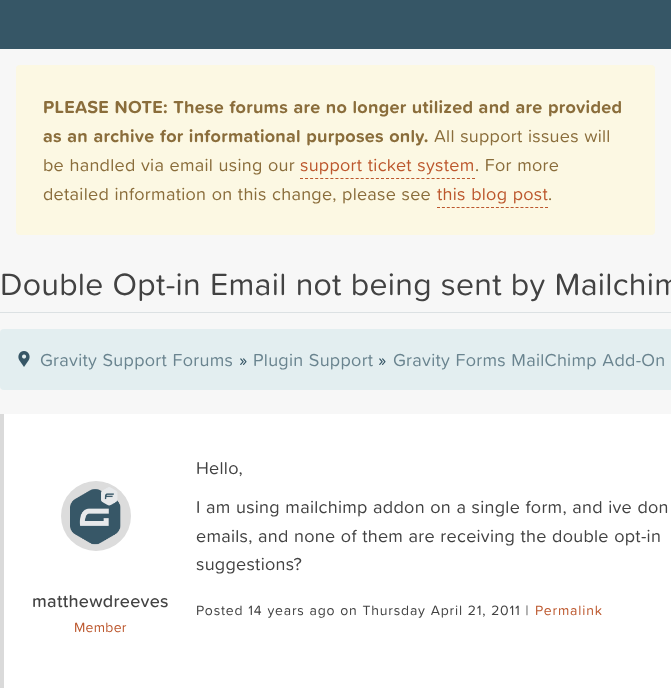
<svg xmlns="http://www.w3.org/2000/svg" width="671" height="688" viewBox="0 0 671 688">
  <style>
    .t1 { font: bold 18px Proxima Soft; letter-spacing: 0.27px; fill: #8a6d3b; }
    .t2 { font: 18px Proxima Soft; letter-spacing: 0.27px; fill: #8a6d3b; }
    .t3 { font: 18px Proxima Soft; letter-spacing: 0.27px; fill: #bc572d; }
    .t4 { font: 32px Proxima Soft; letter-spacing: 0.27px; fill: #424242; }
    .t5 { font: 18px Proxima Soft; letter-spacing: 0.27px; fill: #6a848f; }
    .t6 { font: 500 18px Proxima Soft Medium; letter-spacing: 0.27px; fill: #365666; }
    .t7 { font: 500 18px Proxima Soft Medium; letter-spacing: 0.27px; fill: #424242; }
    .t8 { font: 14px Proxima Soft; letter-spacing: 0.27px; fill: #bc572d; }
    .t9 { font: 18px Proxima Soft; letter-spacing: 0.27px; fill: #424242; }
    .t10 { font: 14px Proxima Soft; letter-spacing: 0.8px; fill: #424242; }
    .t11 { font: 14px Proxima Soft; letter-spacing: 0.8px; fill: #bc572d; }
  </style>
  <rect width="100%" height="100%" fill="#f7f7f7"/>
  <rect x="0" y="0" width="671" height="49" fill="#365666"/>
  <rect x="16" y="65" width="639" height="170" rx="4" fill="#fcf8e3"/>
  <text x="43" y="113" word-spacing="0.5" class="t1">PLEASE NOTE: These forums are no longer utilized and are provided</text>
  <text x="43" y="142" word-spacing="0.5" class="t1">as an archive for informational purposes only.</text>
  <text x="434" y="142" word-spacing="0.5" class="t2">All support issues will</text>
  <text x="43" y="171" word-spacing="0.5" class="t2">be handled via email using our</text>
  <text x="300" y="171" word-spacing="0.5" class="t3">support ticket system</text>
  <path d="M300 178.5H475" fill="none" stroke="#bc572d" stroke-dasharray="3 2.06"/>
  <text x="475" y="171" word-spacing="0.5" class="t2">. For more</text>
  <text x="43" y="200" word-spacing="0.5" class="t2">detailed information on this change, please see</text>
  <text x="437" y="200" word-spacing="0.5" class="t3">this blog post</text>
  <path d="M437 207.5H548" fill="none" stroke="#bc572d" stroke-dasharray="3 1.91"/>
  <text x="548" y="200" class="t2">.</text>
  <rect x="0" y="312" width="671" height="1" fill="#dce1e3"/>
  <text x="0" y="295" word-spacing="0.5" class="t4">Double Opt-in Email not being sent by Mailchim</text>
  <rect x="0" y="329" width="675" height="61" rx="4" fill="#e3eef0"/>
  <image x="18" y="351" width="12" height="16" href="images/1.png"/>
  <text x="40" y="366" word-spacing="0.5" class="t5">Gravity Support Forums</text>
  <text x="239" y="366" class="t6">»</text>
  <text x="253" y="366" word-spacing="0.5" class="t5">Plugin Support</text>
  <text x="378" y="366" class="t6">»</text>
  <text x="393" y="366" word-spacing="0.5" class="t5">Gravity Forms MailChimp Add-On</text>
  <rect x="4" y="414" width="667" height="274" fill="#fff"/>
  <rect x="0" y="414" width="4" height="274" fill="#dadada"/>
  <image x="61" y="481" width="70" height="70" href="images/2.png"/>
  <text x="32" y="607" class="t7">matthewdreeves</text>
  <text x="74" y="632" class="t8">Member</text>
  <text x="196" y="474" class="t9">Hello,</text>
  <text x="196" y="513" word-spacing="0.5" class="t9">I am using mailchimp addon on a single form, and ive don</text>
  <text x="196" y="542" word-spacing="0.5" class="t9">emails, and none of them are receiving the double opt-in</text>
  <text x="196" y="570" class="t9">suggestions?</text>
  <text x="196" y="615" word-spacing="0.5" class="t10">Posted 14 years ago on Thursday April 21, 2011 |</text>
  <text x="535" y="615" class="t11">Permalink</text>
</svg>
